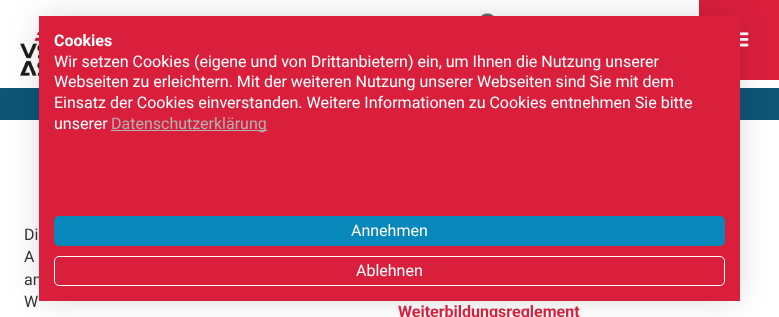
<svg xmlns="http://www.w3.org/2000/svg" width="779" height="317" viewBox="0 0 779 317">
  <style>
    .t1 { font: 16px Roboto; fill: #333; }
    .t2 { font: bold 16px Roboto; fill: #fff; }
    .t3 { font: 16px Roboto; fill: #fff; }
    .t4 { font: 16px Roboto; fill: #b1b2b3; }
    .t5 { font: bold 16px Roboto; fill: #da1f3d; }
  </style>
  <rect width="100%" height="100%" fill="#005983"/>
  <rect x="0" y="0" width="779" height="88" fill="#fff"/>
  <image x="481" y="12" width="13" height="4" href="images/1.png"/>
  <rect x="699" y="0" width="80" height="80" fill="#da1f3d"/>
  <image x="740" y="32" width="9" height="15" href="images/2.png"/>
  <image x="20" y="31" width="19" height="45" href="images/3.png"/>
  <image x="0" y="88" width="779" height="32" href="images/4.png"/>
  <rect x="0" y="120" width="779" height="197" fill="#fff"/>
  <rect x="41" y="18" width="697" height="281" fill="#00000029" filter="blur(15px)"/>
  <text x="24" y="285" class="t1">an</text>
  <rect x="39" y="16" width="701" height="285" fill="#da1f3d"/>
  <text x="54" y="46" class="t2">Cookies</text>
  <text x="54" y="67" class="t3">Wir setzen Cookies (eigene und von Drittanbietern) ein, um Ihnen die Nutzung unserer</text>
  <text x="54" y="87" class="t3">Webseiten zu erleichtern. Mit der weiteren Nutzung unserer Webseiten sind Sie mit dem</text>
  <text x="54" y="108" class="t3">Einsatz der Cookies einverstanden. Weitere Informationen zu Cookies entnehmen Sie bitte</text>
  <text x="54" y="129" class="t3">unserer</text>
  <rect x="111" y="130" width="156" height="1" fill="#b1b2b3"/>
  <text x="111" y="129" class="t4">Datenschutzerklärung</text>
  <rect x="54" y="216" width="671" height="30" rx="5" fill="#0787ba"/>
  <text x="351" y="236" class="t3">Annehmen</text>
  <rect x="54.5" y="256.5" width="670" height="29" rx="4.5" fill="none" stroke="#fff"/>
  <text x="356" y="276" class="t3">Ablehnen</text>
  <text x="24" y="240" class="t1">Di</text>
  <text x="24" y="262" class="t1">A</text>
  <text x="24" y="307" class="t1">W</text>
  <text x="398" y="317" class="t5">Weiterbildungsreglement</text>
</svg>
